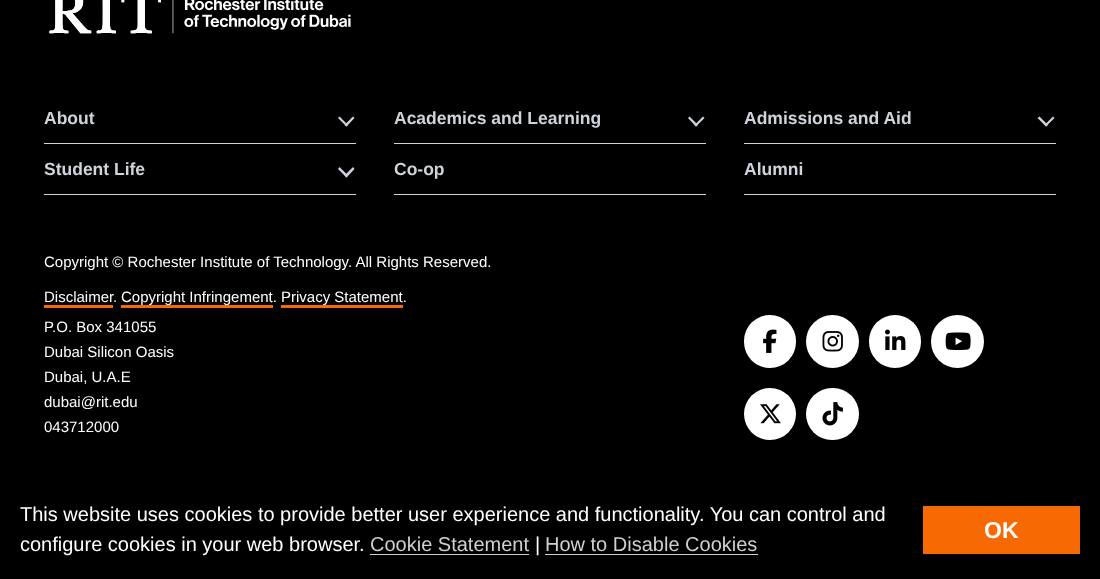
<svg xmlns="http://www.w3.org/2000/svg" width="1100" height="579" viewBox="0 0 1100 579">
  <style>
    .t1 { font: bold 17.5px Liberation Sans; fill: #ced4da; }
    .t2 { font: 15px Liberation Sans; fill: #fff; }
    .t3 { font: 20px Liberation Sans; fill: #fff; }
    .t4 { font: 20px Liberation Sans; fill: #d0d0d0; }
    .t5 { font: bold 23px Liberation Sans; fill: #fff; }
  </style>
  <rect width="100%" height="100%" fill="#000"/>
  <image x="49" y="0" width="302" height="34" href="images/1.png"/>
  <text x="44" y="124" class="t1">About</text>
  <path d="M354.5 118L346.5 126.5L344.5 125L353 116.5Z" fill="#ced4da"/>
  <path d="M348 125L346.5 126.5L338 118L339.5 116.5Z" fill="#ced4da"/>
  <rect x="44" y="143" width="312" height="1" fill="#ced4da"/>
  <text x="44" y="175" class="t1">Student Life</text>
  <path d="M354.5 169L346.5 177.5L344.5 175.5L353 167Z" fill="#ced4da"/>
  <path d="M348 175.5L346.5 177.5L338 169L339.5 167Z" fill="#ced4da"/>
  <rect x="44" y="194" width="312" height="1" fill="#ced4da"/>
  <text x="394" y="124" class="t1">Academics and Learning</text>
  <path d="M704.5 118L696 126.5L694.5 125L703 116.5Z" fill="#ced4da"/>
  <path d="M698 125L696 126.5L688 118L689.5 116.5Z" fill="#ced4da"/>
  <rect x="394" y="143" width="312" height="1" fill="#ced4da"/>
  <text x="394" y="175" class="t1">Co-op</text>
  <rect x="394" y="194" width="312" height="1" fill="#ced4da"/>
  <text x="744" y="124" class="t1">Admissions and Aid</text>
  <path d="M1054.5 118L1046 126.5L1044.5 125L1053 116.5Z" fill="#ced4da"/>
  <path d="M1048 125L1046 126.5L1037.5 118L1039.5 116.5Z" fill="#ced4da"/>
  <rect x="744" y="143" width="312" height="1" fill="#ced4da"/>
  <text x="744" y="175" class="t1">Alumni</text>
  <rect x="744" y="194" width="312" height="1" fill="#ced4da"/>
  <text x="44" y="267" class="t2">Copyright © Rochester Institute of Technology. All Rights Reserved.</text>
  <text x="44" y="302" class="t2">Disclaimer</text>
  <rect x="44" y="305" width="69" height="3" fill="#f76902"/>
  <text x="113" y="302" class="t2">.</text>
  <rect x="121" y="305" width="152" height="3" fill="#f76902"/>
  <text x="121" y="302" class="t2">Copyright Infringement.</text>
  <rect x="281" y="305" width="122" height="3" fill="#f76902"/>
  <text x="281" y="302" class="t2">Privacy Statement.</text>
  <text x="44" y="332" class="t2">P.O. Box 341055</text>
  <text x="44" y="357" class="t2">Dubai Silicon Oasis</text>
  <text x="44" y="382" class="t2">Dubai, U.A.E</text>
  <text x="44" y="407" class="t2">dubai@rit.edu</text>
  <text x="44" y="432" class="t2">043712000</text>
  <rect x="744" y="315" width="52" height="53" rx="26" fill="#fff"/>
  <image x="763" y="329" width="14" height="24" href="images/2.png"/>
  <circle cx="832.5" cy="341.5" r="26.5" fill="#fff"/>
  <image x="822" y="331" width="21" height="21" href="images/3.png"/>
  <rect x="869" y="315" width="52" height="53" rx="26" fill="#fff"/>
  <image x="885" y="329" width="21" height="21" href="images/4.png"/>
  <circle cx="957.5" cy="341.5" r="26.5" fill="#fff"/>
  <image x="945" y="332" width="26" height="18" href="images/5.png"/>
  <circle cx="770" cy="414" r="26" fill="#fff"/>
  <image x="760" y="404" width="21" height="20" href="images/6.png"/>
  <rect x="806" y="388" width="53" height="52" rx="26" fill="#fff"/>
  <image x="822" y="402" width="21" height="24" href="images/7.png"/>
  <text x="20" y="521" class="t3">This website uses cookies to provide better user experience and functionality. You can control and</text>
  <text x="20" y="551" class="t3">configure cookies in your web browser.</text>
  <text x="370" y="551" class="t4">Cookie Statement</text>
  <rect x="370" y="554" width="159" height="1" fill="#d0d0d0"/>
  <text x="535" y="551" class="t3">|</text>
  <text x="545" y="551" class="t4">How to Disable Cookies</text>
  <rect x="545" y="554" width="213" height="1" fill="#d0d0d0"/>
  <rect x="923" y="506" width="157" height="48" fill="#f76902"/>
  <text x="984" y="538" class="t5">OK</text>
</svg>
